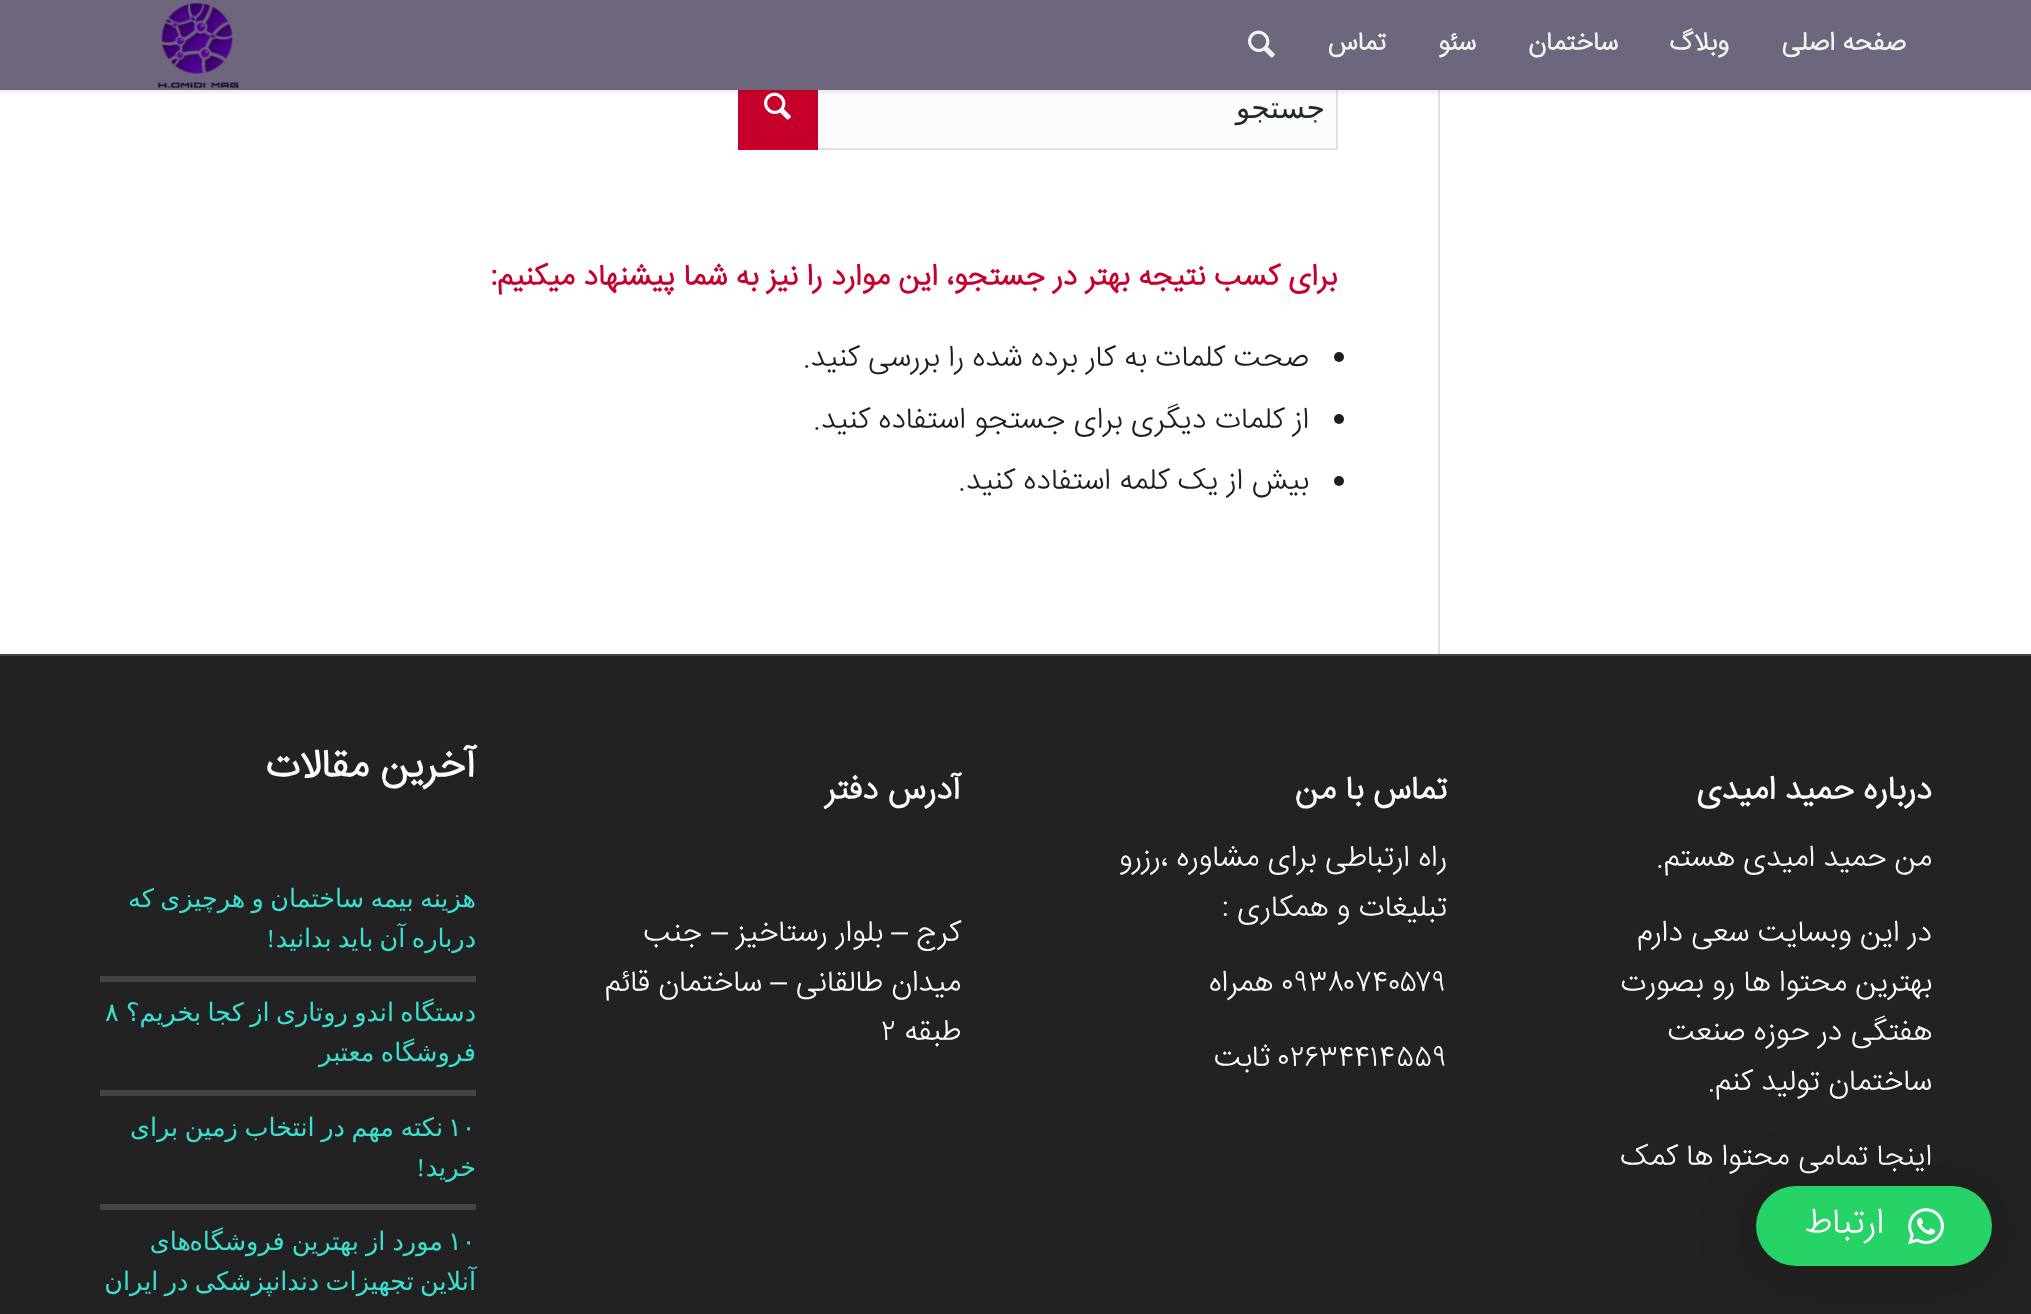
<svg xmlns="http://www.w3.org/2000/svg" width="2031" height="1314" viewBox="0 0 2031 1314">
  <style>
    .t1 { font: bold 26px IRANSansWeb; direction: rtl; fill: #f2f2f2; }
    .t2 { font: 30px DejaVu Sans; direction: rtl; fill: #222928; }
    .t3 { font: bold 30px IRANSansWeb; direction: rtl; fill: #c7002b; }
    .t4 { font: 300 30px IRANSansWeb; direction: rtl; fill: #211c21; }
    .t5 { font: bold 33px IRANSansWeb; direction: rtl; fill: #fffcfc; }
    .t6 { font: 300 30px IRANSansWeb; direction: rtl; fill: #fffcfc; }
    .t7 { font: 300 30px IRANSansWeb; fill: #fffcfc; }
    .t8 { font: 30px Liberation Sans; direction: rtl; fill: #fffcfc; }
    .t9 { font: bold 40px IRANSansWeb; direction: rtl; fill: #fffcfc; }
    .t10 { font: 25.5px DejaVu Sans; direction: rtl; fill: #3ae0d0; }
    .t11 { font: 25.5px Liberation Serif; direction: rtl; fill: #3ae0d0; }
    .t12 { font: 25.5px DejaVu Sans; fill: #3ae0d0; }
    .t13 { font: 300 36px IRANSansWeb; direction: rtl; fill: #fffcfc; }
  </style>
  <rect width="100%" height="100%" fill="#fff"/>
  <rect x="1438" y="90" width="2" height="564" fill="#e1e1e1"/>
  <rect x="818" y="90" width="518" height="58" fill="#fcfcfc"/>
  <rect x="739" y="69" width="598" height="80" fill="none" stroke="#e1e1e1" stroke-width="2"/>
  <rect x="738" y="90" width="80" height="60" fill="#c7002b"/>
  <image x="764" y="92" width="27" height="28" href="images/3.png"/>
  <rect x="-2" y="-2" width="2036" height="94" fill="#0000001a" filter="blur(2px)"/>
  <rect x="0" y="0" width="2031" height="90" fill="#6d667c"/>
  <text x="1906" y="50" class="t1">صفحه اصلی</text>
  <text x="1729" y="50" class="t1">وبلاگ</text>
  <text x="1618" y="50" class="t1">ساختمان</text>
  <text x="1476" y="50" class="t1">سئو</text>
  <text x="1386" y="50" class="t1">تماس</text>
  <image x="1248" y="30" width="27" height="28" href="images/1.png"/>
  <image x="157" y="3" width="82" height="86" href="images/2.png"/>
  <text x="1325" y="118" class="t2">جستجو</text>
  <text x="1337" y="285" class="t3">برای کسب نتیجه بهتر در جستجو، این موارد را نیز به شما پیشنهاد میکنیم:</text>
  <circle cx="1339" cy="357" r="5" fill="#211c21"/>
  <text x="1309" y="366" class="t4">صحت کلمات به کار برده شده را بررسی کنید.</text>
  <circle cx="1339" cy="419" r="5" fill="#211c21"/>
  <text x="1309" y="428" class="t4">از کلمات دیگری برای جستجو استفاده کنید.</text>
  <circle cx="1339" cy="481" r="5" fill="#211c21"/>
  <text x="1309" y="489" class="t4">بیش از یک کلمه استفاده کنید.</text>
  <rect x="0" y="656" width="2031" height="658" fill="#222"/>
  <rect x="0" y="654" width="2031" height="2" fill="#444"/>
  <text x="1932" y="799" class="t5">درباره حمید امیدی</text>
  <text x="1932" y="866" class="t6">من حمید امیدی هستم.</text>
  <text x="1932" y="941" class="t6">در این وبسایت سعی دارم</text>
  <text x="1932" y="991" class="t6">بهترین محتوا ها رو بصورت</text>
  <text x="1932" y="1040" class="t6">هفتگی در حوزه صنعت</text>
  <text x="1932" y="1090" class="t6">ساختمان تولید کنم.</text>
  <text x="1932" y="1165" class="t6">اینجا تمامی محتوا ها کمک</text>
  <text x="1447" y="799" class="t5">تماس با من</text>
  <text x="1447" y="866" class="t6">راه ارتباطی برای مشاوره ،رزرو</text>
  <text x="1447" y="916" class="t6">تبلیغات و همکاری :</text>
  <text x="1281" y="991" class="t7">۰۹۳۸۰۷۴۰۵۷۹</text>
  <text x="1273" y="991" class="t6">همراه</text>
  <text x="1279" y="1066" class="t7">۰۲۶۳۴۴۱۴۵۵۹</text>
  <text x="1270" y="1066" class="t6">ثابت</text>
  <text x="961" y="799" class="t5">آدرس دفتر</text>
  <text x="961" y="941" class="t6">کرج</text>
  <text x="908" y="941" class="t8">–</text>
  <text x="883" y="941" class="t6">بلوار رستاخیز</text>
  <text x="728" y="941" class="t8">–</text>
  <text x="702" y="941" class="t6">جنب</text>
  <text x="961" y="991" class="t6">میدان طالقانی</text>
  <text x="787" y="991" class="t8">–</text>
  <text x="762" y="991" class="t6">ساختمان قائم</text>
  <text x="961" y="1040" class="t6">طبقه</text>
  <text x="881" y="1040" class="t7">۲</text>
  <text x="476" y="777" class="t9">آخرین مقالات</text>
  <text x="476" y="907" word-spacing="-1.75" class="t10">هزینه بیمه ساختمان و هرچیزی که</text>
  <text x="476" y="947" word-spacing="-1.75" class="t10">درباره آن باید بدانید</text>
  <text x="275" y="947" class="t11">!</text>
  <rect x="100" y="976" width="376" height="6" fill="#444"/>
  <text x="476" y="1021" word-spacing="-1.75" class="t10">دستگاه اندو روتاری از کجا بخریم؟</text>
  <text x="105" y="1021" class="t12">۸</text>
  <text x="476" y="1061" word-spacing="-1.75" class="t10">فروشگاه معتبر</text>
  <rect x="100" y="1090" width="376" height="6" fill="#444"/>
  <text x="448" y="1136" class="t12">۱۰</text>
  <text x="443" y="1136" word-spacing="-1.5" class="t10">نکته مهم در انتخاب زمین برای</text>
  <text x="476" y="1176" class="t10">خرید</text>
  <text x="425" y="1176" class="t11">!</text>
  <rect x="100" y="1204" width="376" height="6" fill="#444"/>
  <text x="448" y="1250" class="t12">۱۰</text>
  <text x="443" y="1250" word-spacing="-1" class="t10">مورد از بهترین فروشگاه</text>
  <text x="191" y="1250" class="t10">های</text>
  <text x="476" y="1290" word-spacing="-1.75" class="t10">آنلاین تجهیزات دندانپزشکی در ایران</text>
  <rect x="1756" y="1190" width="236" height="80" rx="40" fill="#00000029" filter="blur(32px)"/>
  <rect x="1756" y="1186" width="236" height="80" rx="40" fill="#25d366"/>
  <image x="1908" y="1208" width="36" height="37" href="images/4.png"/>
  <text x="1884" y="1233" class="t13">ارتباط</text>
</svg>
